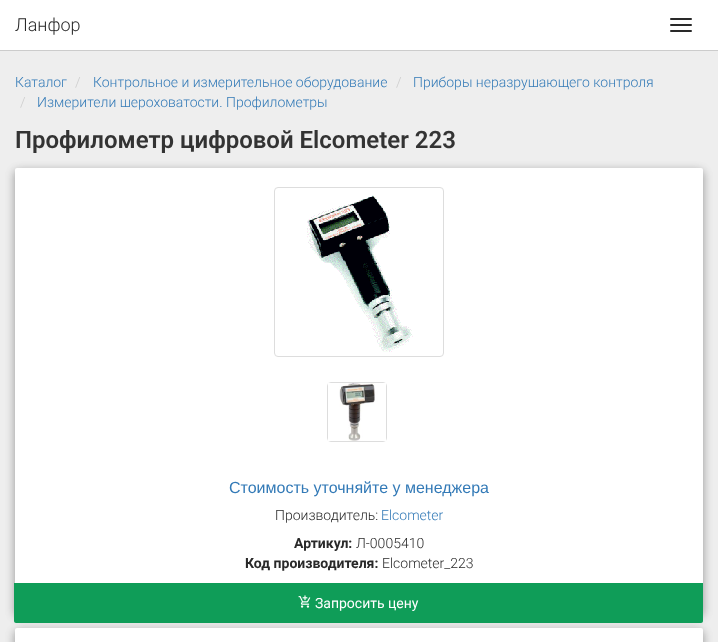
<svg xmlns="http://www.w3.org/2000/svg" width="718" height="642" viewBox="0 0 718 642">
  <style>
    .t1 { font: 300 18px Roboto; fill: #292929; }
    .t2 { font: 300 14px Roboto; fill: #337ab7; }
    .t3 { font: 300 14px Roboto; fill: #ccc; }
    .t4 { font: 600 24px Roboto; fill: #333; }
    .t5 { font: 16px Liberation Sans; fill: #337ab7; }
    .t6 { font: 300 14px Roboto; fill: #292929; }
    .t7 { font: bold 14px Roboto; fill: #292929; }
    .t8 { font: 14px Roboto; fill: #fff; }
  </style>
  <rect width="100%" height="100%" fill="#eee"/>
  <rect x="0" y="0" width="718" height="50" fill="#fff"/>
  <rect x="0" y="50" width="718" height="1" fill="#ccc"/>
  <text x="15" y="31" class="t1">Ланфор</text>
  <rect x="670" y="18" width="22" height="2" rx="1" fill="#292929"/>
  <rect x="670" y="24" width="22" height="2" rx="1" fill="#292929"/>
  <rect x="670" y="30" width="22" height="2" rx="1" fill="#292929"/>
  <text x="15" y="87" class="t2">Каталог</text>
  <text x="75" y="87" class="t3">/</text>
  <text x="93" y="87" class="t2">Контрольное и измерительное оборудование</text>
  <text x="396" y="87" class="t3">/</text>
  <text x="413" y="87" class="t2">Приборы неразрушающего контроля</text>
  <text x="20" y="107" class="t3">/</text>
  <text x="37" y="107" class="t2">Измерители шероховатости. Профилометры</text>
  <text x="15" y="148" class="t4">Профилометр цифровой Elcometer 223</text>
  <rect x="15" y="171" width="688" height="445" rx="2" fill="#00000029" filter="blur(5px)"/>
  <rect x="15" y="171" width="688" height="445" rx="2" fill="#0000003b" filter="blur(5px)"/>
  <rect x="15" y="168" width="688" height="445" rx="2" fill="#fff"/>
  <rect x="274.5" y="187.5" width="169" height="169" rx="3.5" fill="none" stroke="#ddd"/>
  <image x="307" y="195" width="106" height="157" href="images/1.png"/>
  <rect x="327.5" y="382.5" width="59" height="59" rx="3.5" fill="none" stroke="#ddd"/>
  <image x="328" y="383" width="58" height="58" href="images/2.png"/>
  <text x="229" y="493" class="t5">Стоимость уточняйте у менеджера</text>
  <text x="275" y="520" class="t6">Производитель:</text>
  <text x="381" y="520" class="t2">Elcometer</text>
  <text x="294" y="548" class="t7">Артикул:</text>
  <text x="356" y="548" class="t6">Л-0005410</text>
  <text x="245" y="568" class="t7">Код производителя:</text>
  <text x="382" y="568" class="t6">Elcometer_223</text>
  <rect x="15" y="631" width="688" height="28" rx="2" fill="#00000029" filter="blur(5px)"/>
  <rect x="15" y="631" width="688" height="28" rx="2" fill="#0000003b" filter="blur(5px)"/>
  <path d="M14 583H703V621C703 622 702 623 701 623H16C15 623 14 622 14 621Z" fill="#0f9d58"/>
  <image x="298" y="595" width="13" height="13" href="images/3.png"/>
  <text x="315" y="608" class="t8">Запросить цену</text>
  <rect x="15" y="628" width="688" height="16" rx="2" fill="#fff"/>
</svg>
